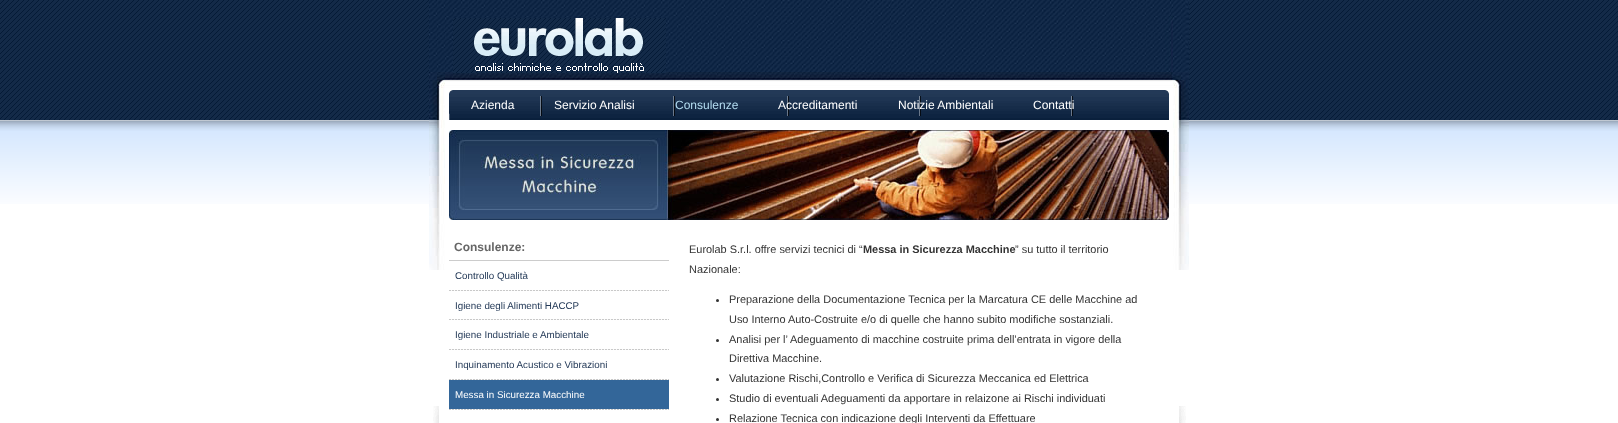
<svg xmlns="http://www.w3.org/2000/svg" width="1618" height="423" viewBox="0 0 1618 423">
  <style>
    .t1 { font: 12px Liberation Sans; fill: #fff; }
    .t2 { font: 12px Liberation Sans; fill: #b3dcf0; }
    .t3 { font: bold 12px Liberation Sans; fill: #666; }
    .t4 { font: 9.8px Liberation Sans; fill: #233957; }
    .t5 { font: 9.8px Liberation Sans; fill: #fff; }
    .t6 { font: 10.95px Liberation Sans; fill: #333; }
    .t7 { font: bold 10.95px Liberation Sans; fill: #333; }
  </style>
  <rect width="100%" height="100%" fill="#fff"/>
  <image x="0" y="0" width="1618" height="204" href="images/1.png"/>
  <image x="433" y="406" width="753" height="17" href="images/2.png"/>
  <image x="429" y="0" width="760" height="270" href="images/3.png"/>
  <image x="453" y="18" width="213" height="55" href="images/4.png"/>
  <image x="449" y="90" width="720" height="30" href="images/5.png"/>
  <text x="471" y="109" class="t1">Azienda</text>
  <text x="554" y="109" class="t1">Servizio Analisi</text>
  <text x="675" y="109" class="t2">Consulenze</text>
  <text x="778" y="109" class="t1">Accreditamenti</text>
  <text x="898" y="109" class="t1">Notizie Ambientali</text>
  <text x="1033" y="109" class="t1">Contatti</text>
  <image x="449" y="130" width="720" height="90" href="images/6.png"/>
  <rect x="449" y="260" width="220" height="1" fill="#ccc"/>
  <text x="454" y="251" class="t3">Consulenze:</text>
  <image x="449" y="290" width="220" height="1" href="images/7.png"/>
  <text x="455" y="279" class="t4">Controllo Qualità</text>
  <image x="449" y="319" width="220" height="1" href="images/7.png"/>
  <text x="455" y="309" class="t4">Igiene degli Alimenti HACCP</text>
  <image x="449" y="349" width="220" height="1" href="images/7.png"/>
  <text x="455" y="338" class="t4">Igiene Industriale e Ambientale</text>
  <image x="449" y="379" width="220" height="1" href="images/7.png"/>
  <text x="455" y="368" class="t4">Inquinamento Acustico e Vibrazioni</text>
  <rect x="449" y="380" width="220" height="29" fill="#369"/>
  <image x="449" y="409" width="220" height="1" href="images/7.png"/>
  <text x="455" y="398" class="t5">Messa in Sicurezza Macchine</text>
  <text x="689" y="253" class="t6">Eurolab S.r.l. offre servizi tecnici di “</text>
  <text x="863" y="253" class="t7">Messa in Sicurezza Macchine</text>
  <text x="1015" y="253" class="t6">” su tutto il territorio</text>
  <text x="689" y="273" class="t6">Nazionale:</text>
  <circle cx="717.5" cy="300.5" r="1.5" fill="#333"/>
  <text x="729" y="303" class="t6">Preparazione della Documentazione Tecnica per la Marcatura CE delle Macchine ad</text>
  <text x="729" y="323" class="t6">Uso Interno Auto-Costruite e/o di quelle che hanno subito modifiche sostanziali.</text>
  <circle cx="717.5" cy="340.5" r="1.5" fill="#333"/>
  <text x="729" y="343" class="t6">Analisi per l’ Adeguamento di macchine costruite prima dell’entrata in vigore della</text>
  <text x="729" y="362" class="t6">Direttiva Macchine.</text>
  <circle cx="717.5" cy="379.5" r="1.5" fill="#333"/>
  <text x="729" y="382" class="t6">Valutazione Rischi,Controllo e Verifica di Sicurezza Meccanica ed Elettrica</text>
  <circle cx="717.5" cy="399.5" r="1.5" fill="#333"/>
  <text x="729" y="402" class="t6">Studio di eventuali Adeguamenti da apportare in relaizone ai Rischi individuati</text>
  <circle cx="717.5" cy="419.5" r="1.5" fill="#333"/>
  <text x="729" y="422" class="t6">Relazione Tecnica con indicazione degli Interventi da Effettuare</text>
</svg>
